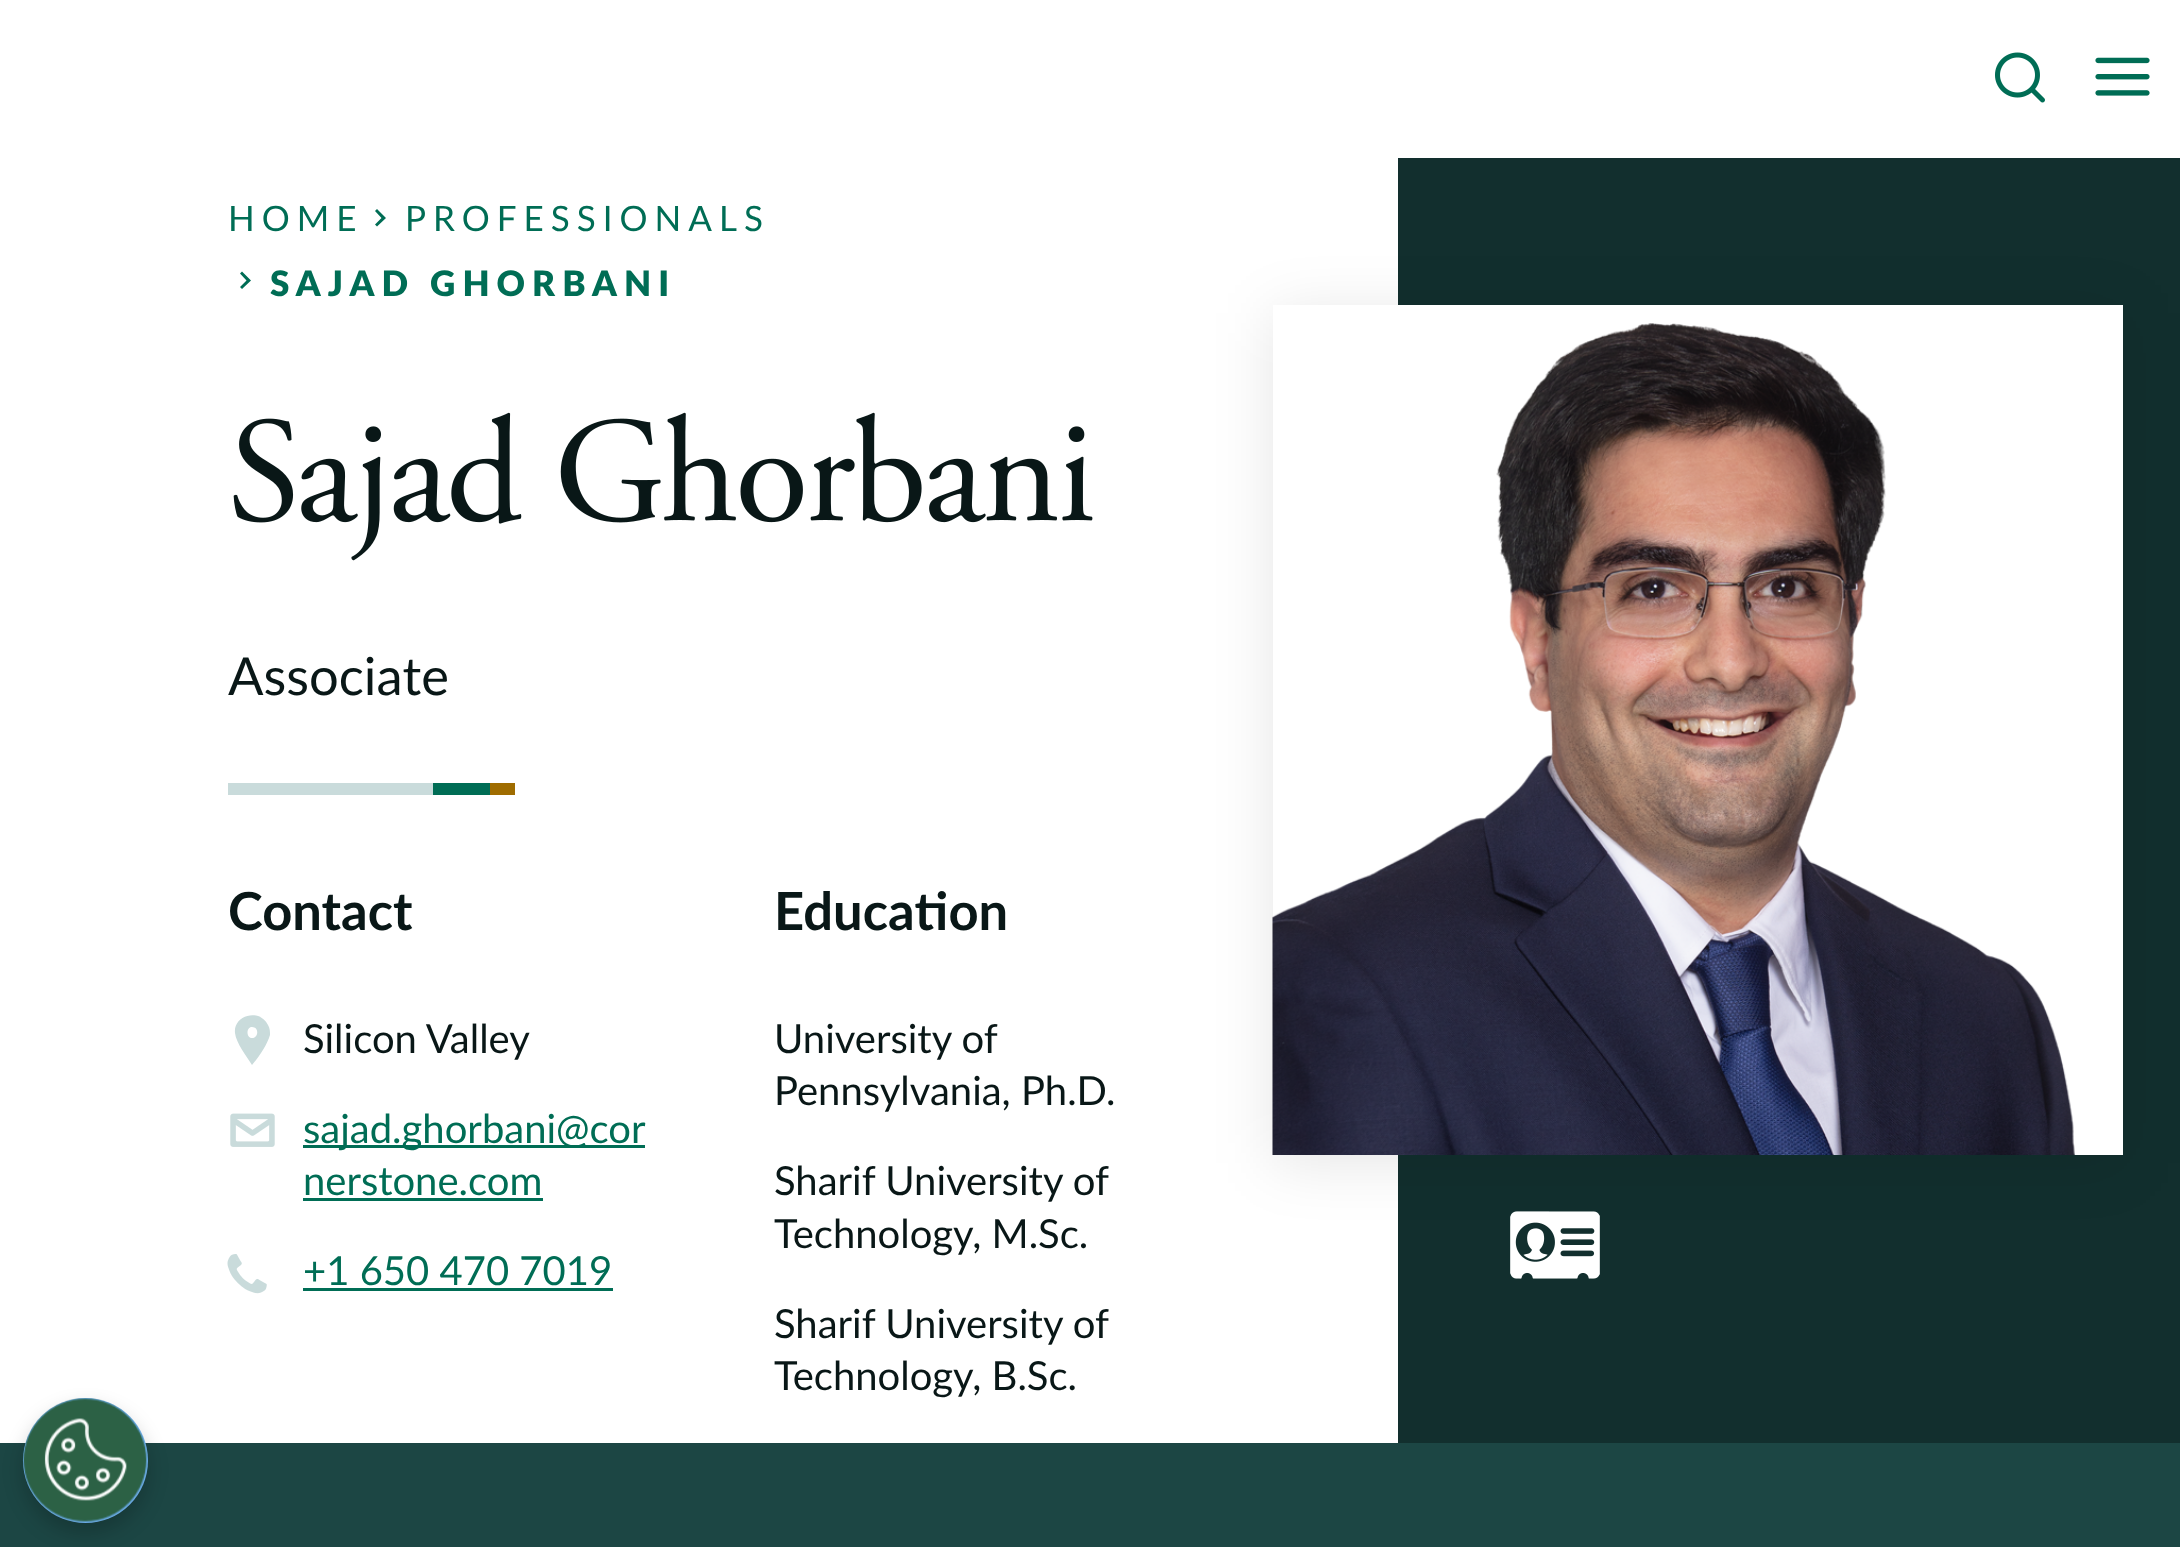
<svg xmlns="http://www.w3.org/2000/svg" width="2180" height="1547" viewBox="0 0 2180 1547">
  <style>
    .t1 { font: 35px Lato; letter-spacing: 7px; fill: #006d55; }
    .t2 { font: 900 35px Lato; letter-spacing: 7px; fill: #006d55; }
    .t3 { font: 52.5px Lato; fill: #091717; }
    .t4 { font: bold 52.5px Lato; fill: #091717; }
    .t5 { font: 40px Lato; fill: #091717; }
    .t6 { font: 40px Lato; fill: #006d55; }
  </style>
  <rect width="100%" height="100%" fill="#fff"/>
  <image x="1995" y="52" width="50" height="51" href="images/1.png"/>
  <image x="2095" y="57" width="55" height="39" href="images/2.png"/>
  <text x="228" y="231" class="t1">HOME</text>
  <text x="405" y="231" class="t1">PROFESSIONALS</text>
  <path d="M375 224.5L381.5 218L375 211L377 209L386 218L377 226.5Z" fill="#006d55"/>
  <path d="M240 287L246.5 280.5L240 273.5L242 271.5L251 280.5L242 289Z" fill="#006d55"/>
  <text x="270" y="296" class="t2">SAJAD GHORBANI</text>
  <image x="233" y="412" width="860" height="149" href="images/3.png"/>
  <text x="228" y="695" class="t3">Associate</text>
  <rect x="228" y="783" width="205" height="12" fill="#c9dbdb"/>
  <rect x="433" y="783" width="57" height="12" fill="#006d55"/>
  <rect x="490" y="783" width="25" height="12" fill="#9f6c00"/>
  <text x="228" y="930" class="t4">Contact</text>
  <path d="M252 1065C247 1057 236 1043 235 1033C233 1015 260 1008 268 1025C270 1028 270 1032 270 1035C267 1045 259 1057 252 1065ZM252 1038C259 1038 259 1027 252 1027C246 1027 246 1038 252 1038Z" fill="#c9dbdb"/>
  <text x="303" y="1053" class="t5">Silicon Valley</text>
  <image x="230" y="1113" width="45" height="34" href="images/4.png"/>
  <rect x="303" y="1145" width="342" height="3" fill="#006d55"/>
  <text x="303" y="1143" class="t6">sajad.ghorbani@cor</text>
  <text x="303" y="1195" class="t6">nerstone.com</text>
  <rect x="303" y="1198" width="240" height="3" fill="#006d55"/>
  <image x="227" y="1254" width="40" height="40" href="images/5.png"/>
  <text x="303" y="1285" class="t6">+1 650 470 7019</text>
  <rect x="303" y="1288" width="310" height="3" fill="#006d55"/>
  <text x="774" y="930" class="t4">Education</text>
  <text x="774" y="1053" class="t5">University of</text>
  <text x="774" y="1105" class="t5">Pennsylvania, Ph.D.</text>
  <text x="774" y="1195" class="t5">Sharif University of</text>
  <text x="774" y="1248" class="t5">Technology, M.Sc.</text>
  <text x="774" y="1338" class="t5">Sharif University of</text>
  <text x="774" y="1390" class="t5">Technology, B.Sc.</text>
  <rect x="1398" y="158" width="782" height="1285" fill="#122f2e"/>
  <image x="1510" y="1211" width="90" height="68" href="images/7.png"/>
  <rect x="1273" y="313" width="850" height="850" fill="#0000001a" filter="blur(30px)"/>
  <rect x="1273" y="305" width="850" height="850" fill="#fff"/>
  <image x="1272" y="323" width="804" height="832" href="images/6.png"/>
  <rect x="0" y="1443" width="2180" height="104" fill="#1c4644"/>
  <rect x="23" y="1408" width="125" height="125" rx="62.5" fill="#00000033" filter="blur(10px)"/>
  <circle cx="85.5" cy="1460.5" r="62.5" fill="#6aaae4"/>
  <image x="23" y="1398" width="124" height="124" href="images/8.png"/>
</svg>
